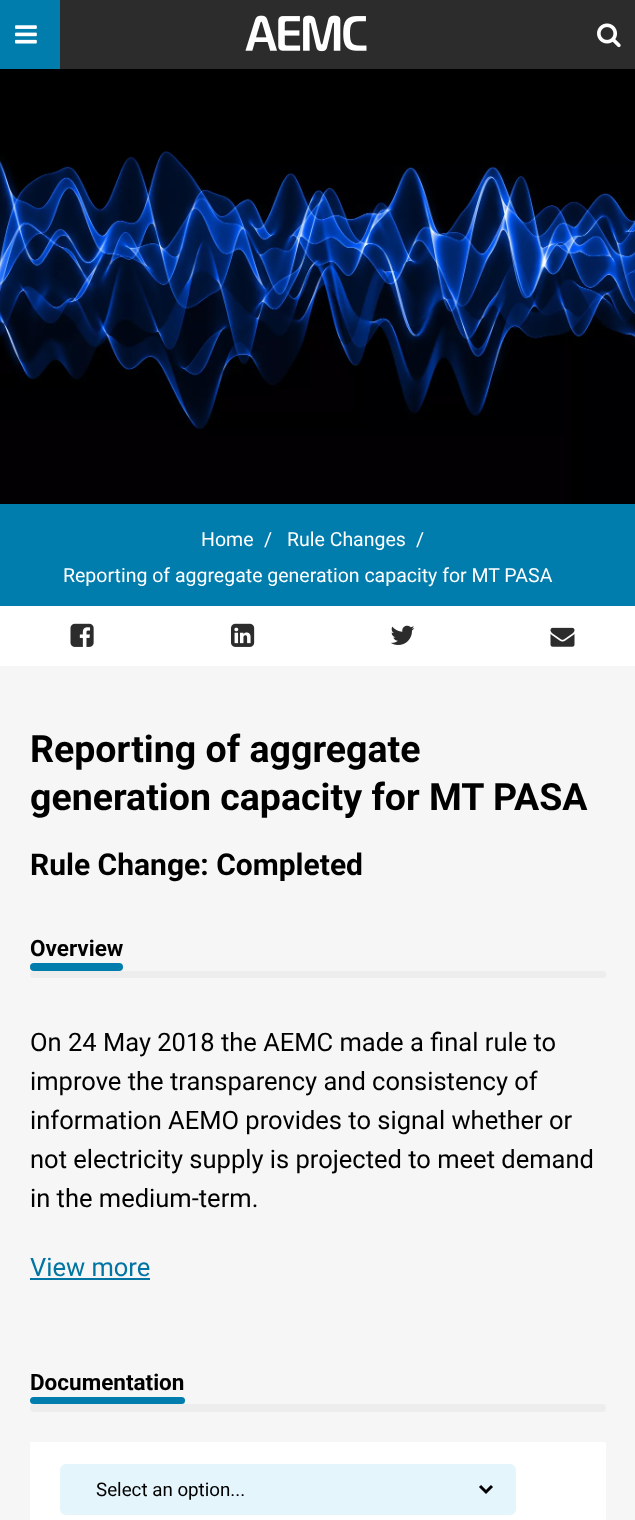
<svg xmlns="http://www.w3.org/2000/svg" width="635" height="1520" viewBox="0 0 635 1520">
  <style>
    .t1 { font: 19.5px Roboto; fill: #fff; }
    .t2 { font: bold 37.5px Roboto; fill: #000; }
    .t3 { font: bold 30px Roboto; fill: #000; }
    .t4 { font: bold 22.5px Roboto; fill: #000; }
    .t5 { font: 25.5px Roboto; fill: #000; }
    .t6 { font: 25.5px Roboto; fill: #0075a3; }
    .t7 { font: 18.75px Roboto; fill: #000; }
  </style>
  <rect width="100%" height="100%" fill="#f6f6f6"/>
  <rect x="60" y="0" width="575" height="69" fill="#2c2c2c"/>
  <rect x="0" y="0" width="60" height="69" fill="#007cad"/>
  <image x="15" y="25" width="22" height="19" href="images/1.png"/>
  <image x="245" y="15" width="122" height="37" href="images/2.png"/>
  <image x="597" y="23" width="24" height="25" href="images/3.png"/>
  <image x="0" y="69" width="635" height="435" href="images/4.png"/>
  <rect x="0" y="504" width="635" height="102" fill="#007cad"/>
  <text x="201" y="546" class="t1">Home</text>
  <text x="264" y="546" class="t1">/</text>
  <text x="287" y="546" class="t1">Rule Changes</text>
  <text x="416" y="546" class="t1">/</text>
  <text x="63" y="582" class="t1">Reporting of aggregate generation capacity for MT PASA</text>
  <rect x="0" y="606" width="635" height="60" fill="#fff"/>
  <image x="70" y="623" width="24" height="24" href="images/5.png"/>
  <image x="231" y="623" width="24" height="24" href="images/6.png"/>
  <image x="390" y="625" width="25" height="20" href="images/7.png"/>
  <image x="550" y="627" width="25" height="20" href="images/8.png"/>
  <text x="30" y="762" class="t2">Reporting of aggregate</text>
  <text x="30" y="810" class="t2">generation capacity for MT PASA</text>
  <text x="30" y="875" class="t3">Rule Change: Completed</text>
  <text x="30" y="956" class="t4">Overview</text>
  <rect x="30" y="963" width="93" height="8" rx="4" fill="#007cad"/>
  <rect x="30" y="971" width="576" height="7" rx="3.5" fill="#ededed"/>
  <text x="30" y="1051" class="t5">On 24 May 2018 the AEMC made a final rule to</text>
  <text x="30" y="1090" class="t5">improve the transparency and consistency of</text>
  <text x="30" y="1129" class="t5">information AEMO provides to signal whether or</text>
  <text x="30" y="1168" class="t5">not electricity supply is projected to meet demand</text>
  <text x="30" y="1207" class="t5">in the medium-term.</text>
  <text x="30" y="1276" class="t6">View more</text>
  <rect x="30" y="1278" width="120" height="2" fill="#0075a3"/>
  <text x="30" y="1390" class="t4">Documentation</text>
  <rect x="30" y="1397" width="155" height="7" rx="3.5" fill="#007cad"/>
  <rect x="30" y="1404" width="576" height="8" rx="4" fill="#ededed"/>
  <rect x="30" y="1442" width="576" height="78" fill="#fff"/>
  <rect x="60" y="1464" width="456" height="51" rx="6" fill="#e5f5fc"/>
  <path d="M480 1486L486 1492L492 1486" fill="none" stroke="#000" stroke-width="3"/>
  <text x="96" y="1496" class="t7">Select an option...</text>
</svg>
